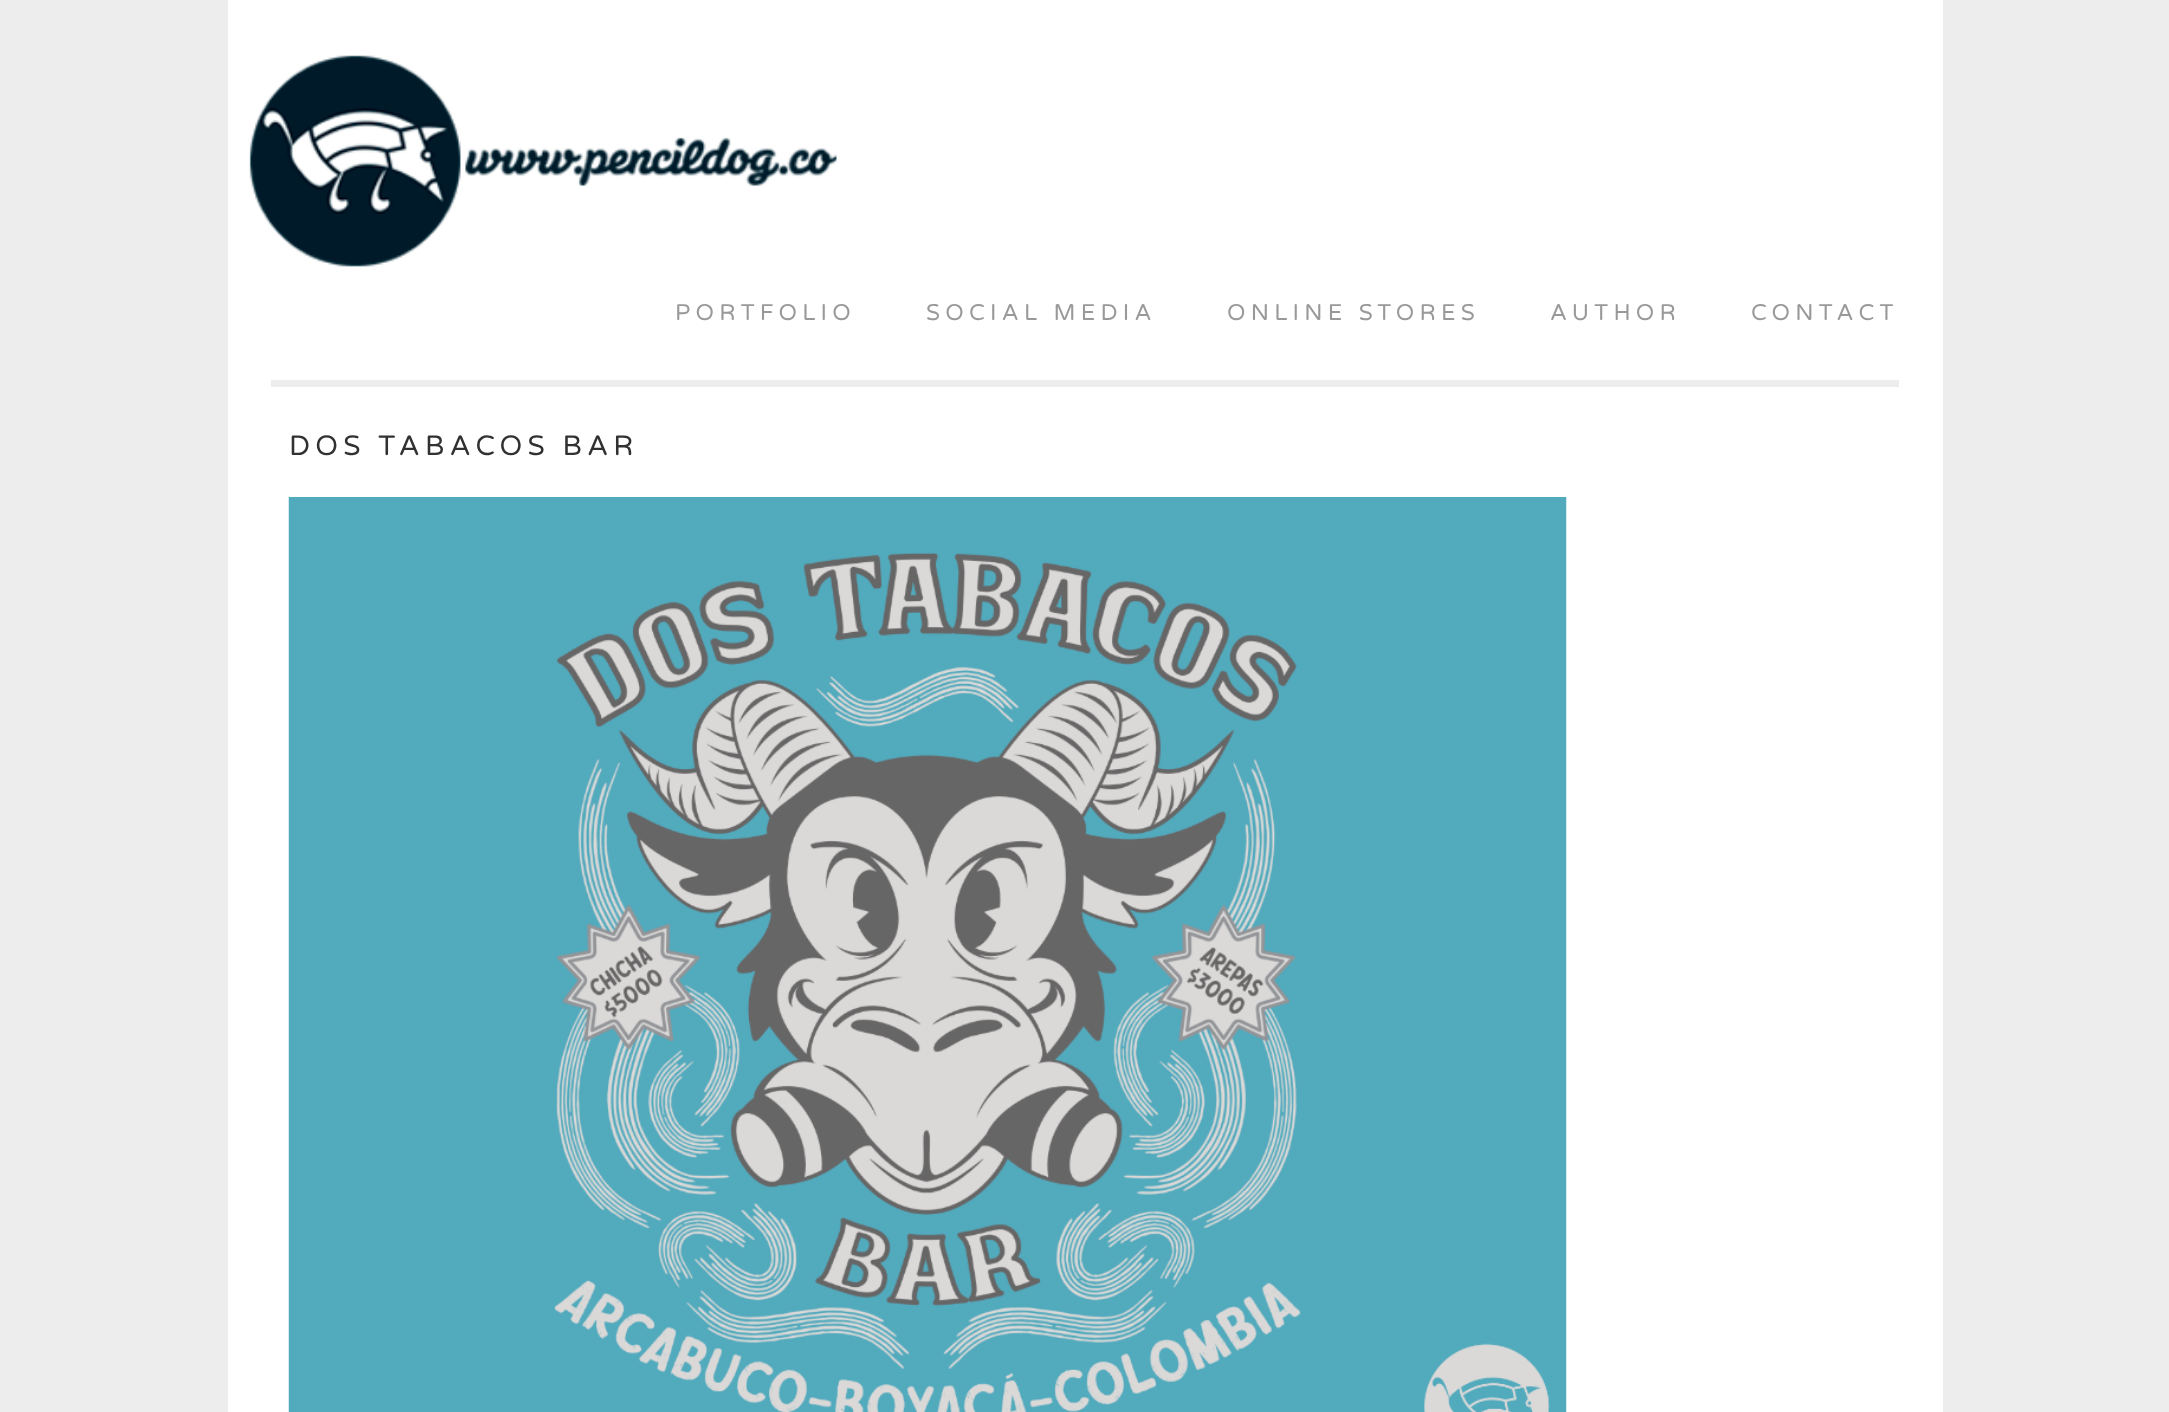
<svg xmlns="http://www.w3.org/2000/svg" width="2169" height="1412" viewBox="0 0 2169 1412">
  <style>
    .t1 { font: 22.75px Varela Round; letter-spacing: 5.25px; fill: #999; }
    .t2 { font: 28px Varela Round; letter-spacing: 5.25px; fill: #313131; }
  </style>
  <rect width="100%" height="100%" fill="#ededed"/>
  <rect x="228" y="0" width="1715" height="1412" fill="#fff"/>
  <image x="249" y="55" width="588" height="212" href="images/1.png"/>
  <text x="675" y="320" class="t1">PORTFOLIO</text>
  <text x="926" y="320" class="t1">SOCIAL MEDIA</text>
  <text x="1227" y="320" class="t1">ONLINE STORES</text>
  <text x="1550" y="320" class="t1">AUTHOR</text>
  <text x="1751" y="320" class="t1">CONTACT</text>
  <rect x="271" y="380" width="1628" height="7" fill="#ededed"/>
  <text x="289" y="455" class="t2">DOS TABACOS BAR</text>
  <image x="288" y="497" width="1279" height="915" href="images/2.png"/>
</svg>
